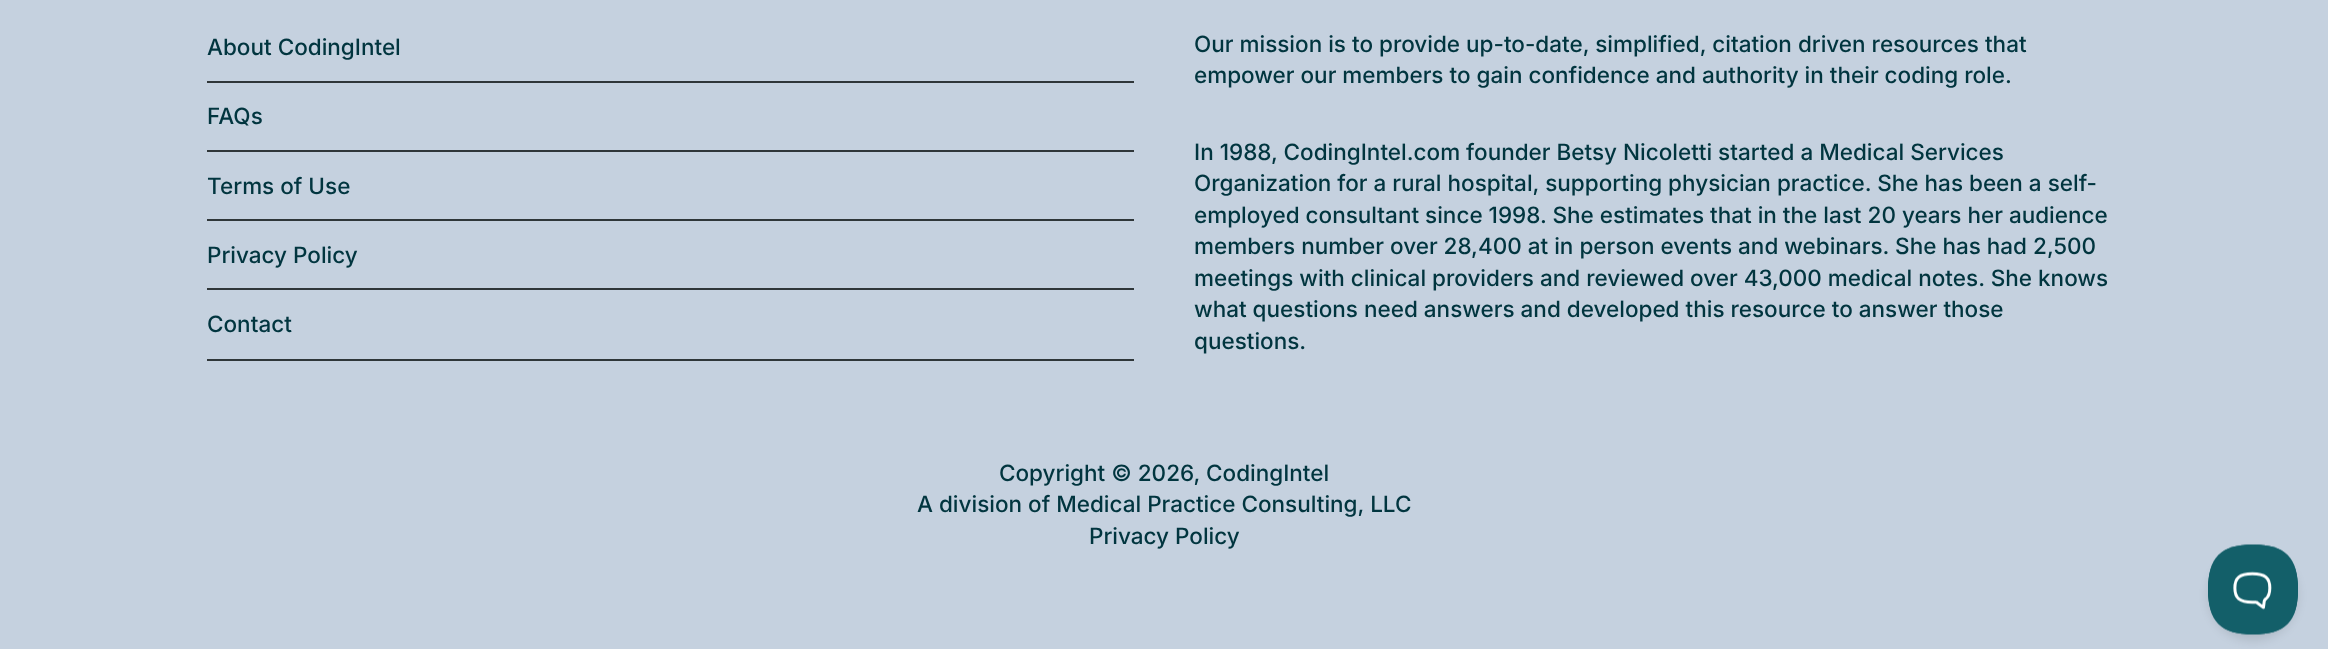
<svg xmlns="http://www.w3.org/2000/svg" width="2328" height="649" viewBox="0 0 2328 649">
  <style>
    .t1 { font: 500 22.5px Inter; fill: #01353f; }
  </style>
  <rect width="100%" height="100%" fill="#c5d1df"/>
  <rect x="207" y="81" width="927" height="2" fill="#2f3639"/>
  <text x="207" y="55" class="t1">About CodingIntel</text>
  <rect x="207" y="150" width="927" height="2" fill="#2f3639"/>
  <text x="207" y="124" class="t1">FAQs</text>
  <rect x="207" y="219" width="927" height="2" fill="#2f3639"/>
  <text x="207" y="194" class="t1">Terms of Use</text>
  <rect x="207" y="288" width="927" height="2" fill="#2f3639"/>
  <text x="207" y="263" class="t1">Privacy Policy</text>
  <rect x="207" y="359" width="927" height="2" fill="#2f3639"/>
  <text x="207" y="332" class="t1">Contact</text>
  <text x="1194" y="52" class="t1">Our mission is to provide up-to-date, simplified, citation driven resources that</text>
  <text x="1194" y="83" class="t1">empower our members to gain confidence and authority in their coding role.</text>
  <text x="1194" y="160" class="t1">In 1988, CodingIntel.com founder Betsy Nicoletti started a Medical Services</text>
  <text x="1194" y="191" class="t1">Organization for a rural hospital, supporting physician practice. She has been a self-</text>
  <text x="1194" y="223" class="t1">employed consultant since 1998. She estimates that in the last 20 years her audience</text>
  <text x="1194" y="254" class="t1">members number over 28,400 at in person events and webinars. She has had 2,500</text>
  <text x="1194" y="286" class="t1">meetings with clinical providers and reviewed over 43,000 medical notes. She knows</text>
  <text x="1194" y="317" class="t1">what questions need answers and developed this resource to answer those</text>
  <text x="1194" y="349" class="t1">questions.</text>
  <text x="999" y="481" class="t1">Copyright © 2026, CodingIntel</text>
  <text x="917" y="512" class="t1">A division of Medical Practice Consulting, LLC</text>
  <text x="1089" y="544" class="t1">Privacy Policy</text>
  <rect x="2208" y="551" width="90" height="90" rx="45" fill="#0000001a" filter="blur(5px)"/>
  <image x="2208" y="544" width="90" height="91" href="images/1.png"/>
</svg>
